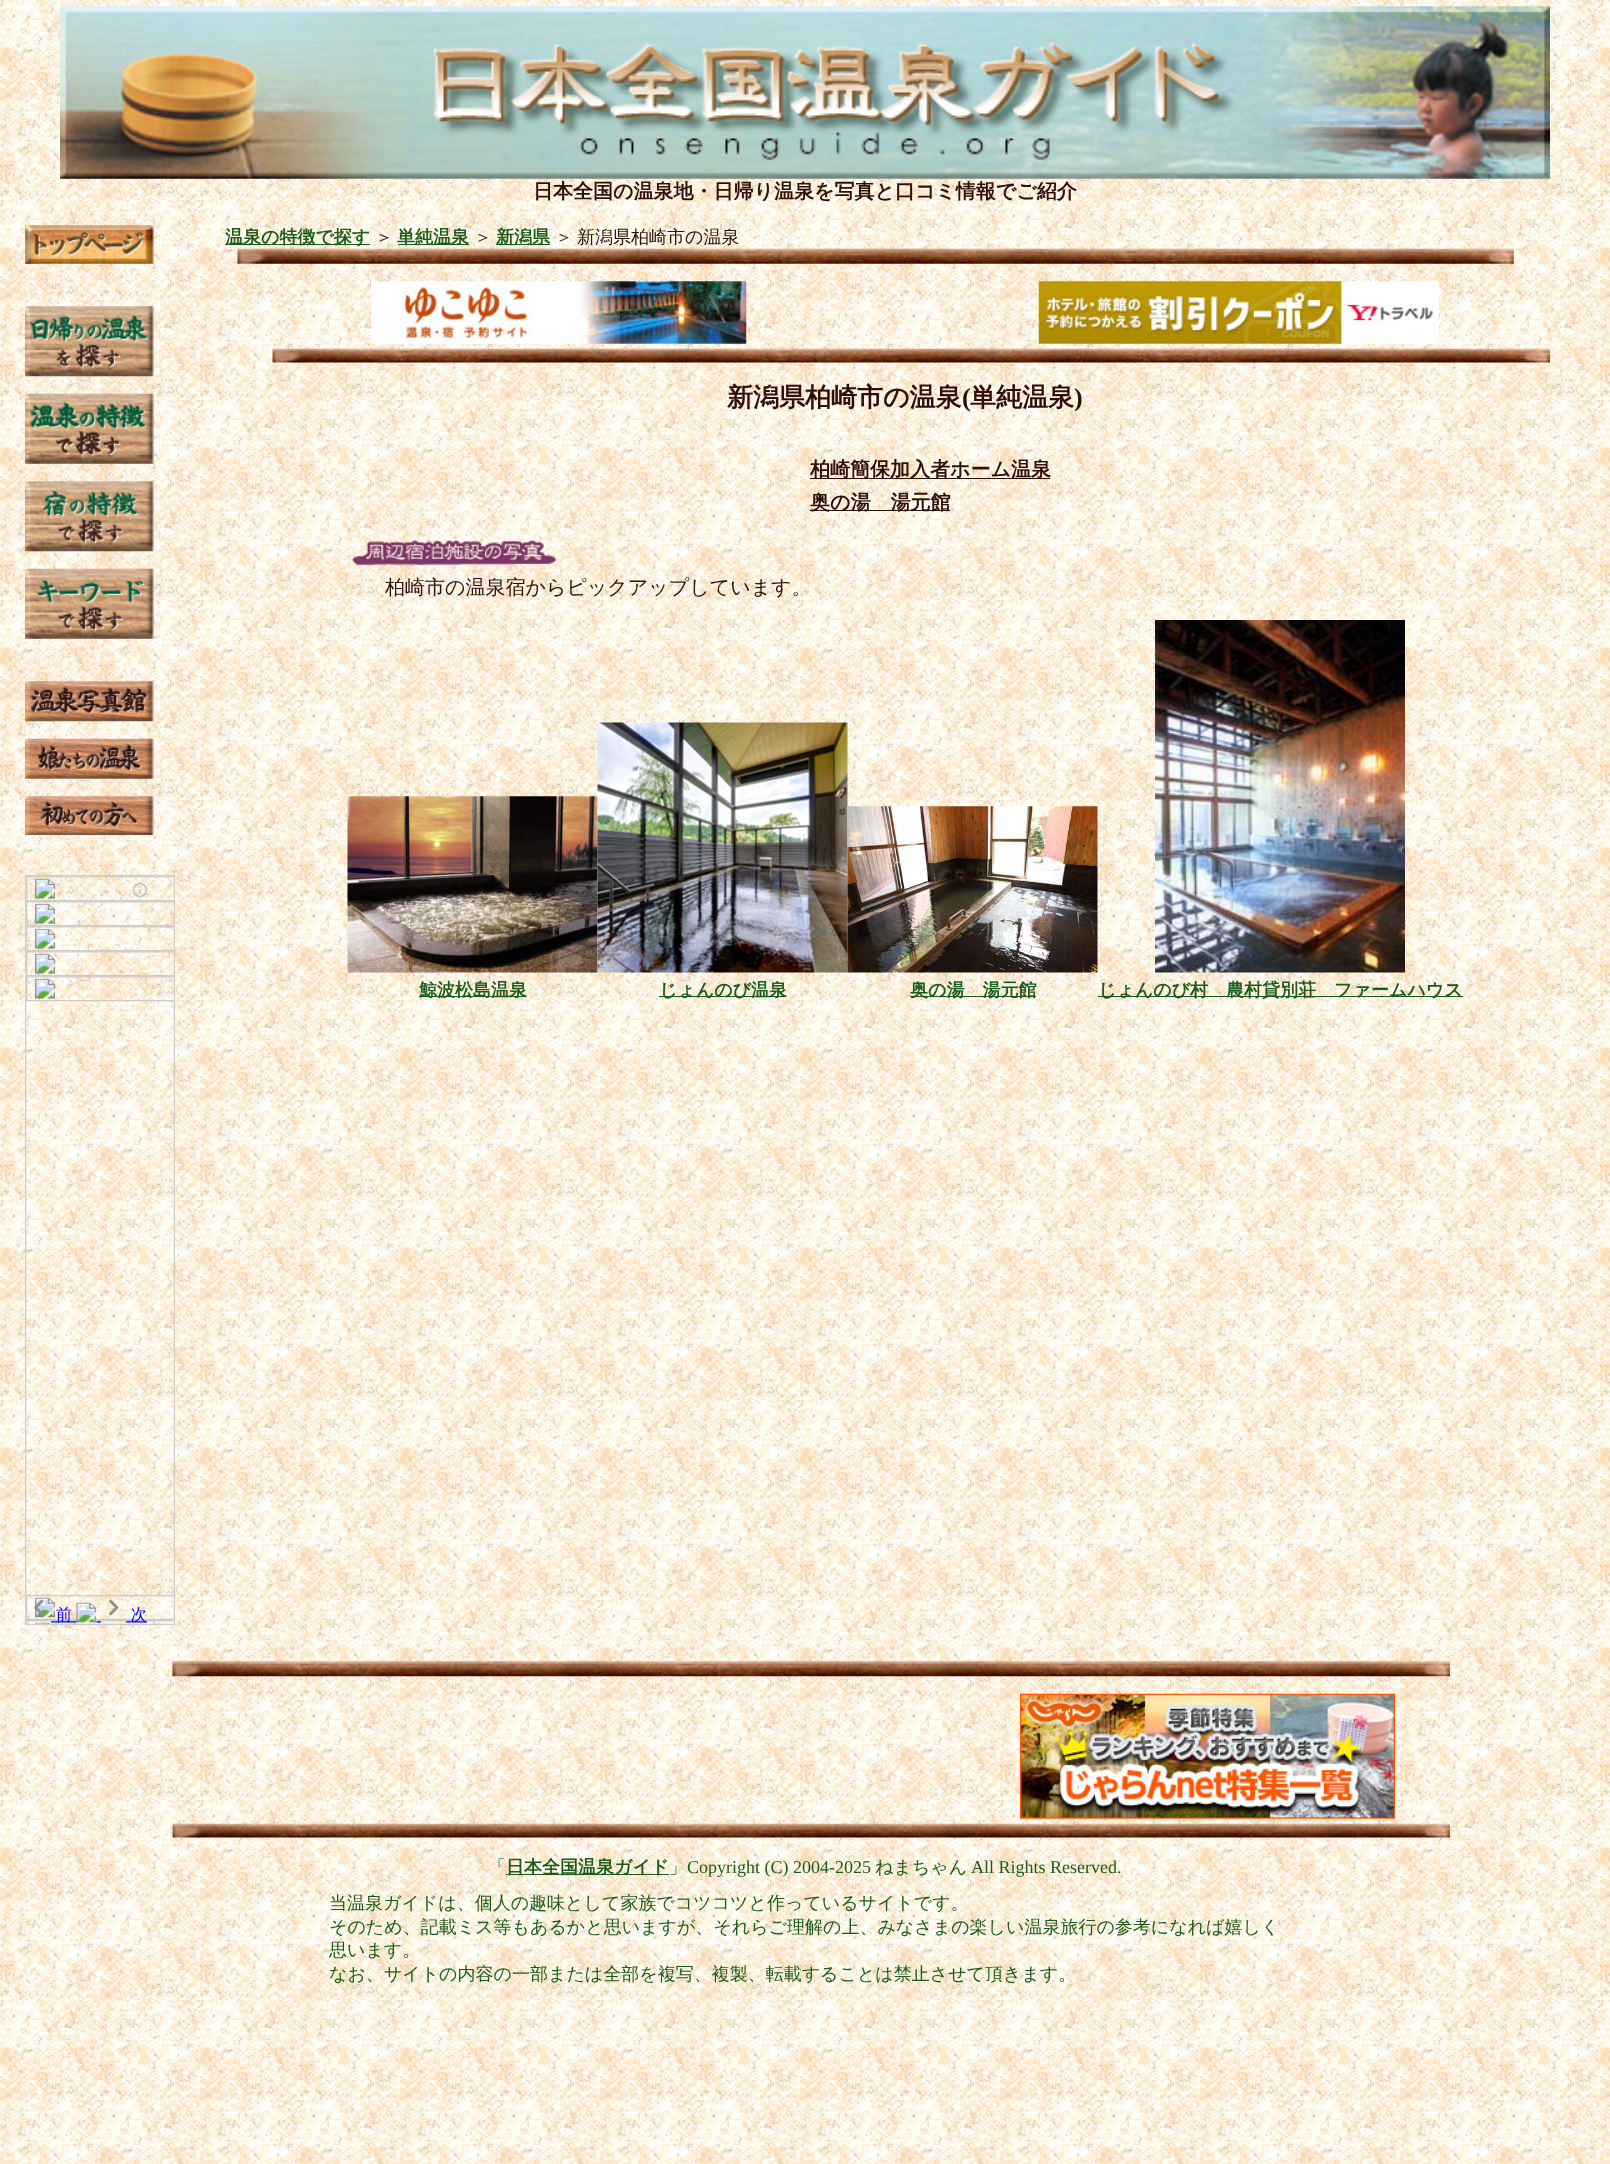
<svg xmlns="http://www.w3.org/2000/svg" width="1610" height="2164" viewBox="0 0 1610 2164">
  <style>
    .t1 { font: bold 20px WenQuanYi Zen Hei; fill: #300f08; }
    .t2 { font: bold 18px WenQuanYi Zen Hei; fill: #1c5c19; }
    .t3 { font: 500 18px WenQuanYi Zen Hei; fill: #300f08; }
    .t4 { font: bold 26px WenQuanYi Zen Hei; fill: #300f08; }
    .t5 { font: bold 26px Liberation Serif; fill: #300f08; }
    .t6 { font: 500 20px WenQuanYi Zen Hei; fill: #300f08; }
    .t7 { font: 500 18px WenQuanYi Zen Hei; fill: #1c5c19; }
    .t8 { font: 18px Liberation Serif; fill: #1c5c19; }
  </style>
  <rect width="100%" height="100%" fill="#fff"/>
  <image x="0" y="0" width="1610" height="2164" href="images/1.png"/>
  <image x="60" y="6" width="1490" height="173" href="images/2.png"/>
  <text x="533" y="198" class="t1">日本全国の温泉地・日帰り温泉を写真と口コミ情報でご紹介</text>
  <image x="25" y="225" width="129" height="39" href="images/3.png"/>
  <image x="25" y="306" width="129" height="71" href="images/4.png"/>
  <image x="25" y="393" width="129" height="71" href="images/5.png"/>
  <image x="25" y="481" width="129" height="71" href="images/6.png"/>
  <image x="25" y="568" width="129" height="71" href="images/7.png"/>
  <image x="25" y="681" width="129" height="41" href="images/8.png"/>
  <image x="25" y="738" width="129" height="41" href="images/9.png"/>
  <image x="25" y="796" width="129" height="39" href="images/10.png"/>
  <image x="25" y="875" width="150" height="750" href="images/11.png"/>
  <rect x="225" y="244" width="145" height="1" fill="#1c5c19"/>
  <text x="225" y="243" class="t2">温泉の特徴で探す</text>
  <text x="375" y="243" class="t3">＞</text>
  <rect x="398" y="244" width="71" height="1" fill="#1c5c19"/>
  <text x="397" y="243" class="t2">単純温泉</text>
  <text x="474" y="243" class="t3">＞</text>
  <rect x="496" y="244" width="54" height="1" fill="#1c5c19"/>
  <text x="496" y="243" class="t2">新潟県</text>
  <text x="555" y="243" class="t3">＞</text>
  <text x="577" y="243" class="t3">新潟県柏崎市の温泉</text>
  <image x="237" y="248" width="1277" height="16" href="images/12.png"/>
  <image x="371" y="281" width="376" height="63" href="images/13.png"/>
  <image x="1038" y="281" width="401" height="63" href="images/14.png"/>
  <image x="272" y="348" width="1278" height="15" href="images/15.png"/>
  <text x="727" y="406" class="t4">新潟県柏崎市の温泉</text>
  <text x="962" y="406" class="t5">(</text>
  <text x="970" y="406" class="t4">単純温泉</text>
  <text x="1074" y="406" class="t5">)</text>
  <rect x="810" y="478" width="240" height="1" fill="#300f08"/>
  <text x="810" y="476" class="t1">柏崎簡保加入者ホーム温泉</text>
  <rect x="810" y="510" width="140" height="1" fill="#300f08"/>
  <text x="810" y="509" class="t1">奥の湯　湯元館</text>
  <image x="352" y="539" width="205" height="27" href="images/16.png"/>
  <text x="385" y="594" class="t6">柏崎市の温泉宿からピックアップしています。</text>
  <image x="347" y="796" width="251" height="177" href="images/17.png"/>
  <rect x="419" y="996" width="107" height="1" fill="#1c5c19"/>
  <text x="419" y="996" class="t2">鯨波松島温泉</text>
  <image x="597" y="722" width="251" height="251" href="images/18.png"/>
  <rect x="659" y="996" width="127" height="1" fill="#1c5c19"/>
  <text x="659" y="996" class="t2">じょんのび温泉</text>
  <image x="847" y="806" width="251" height="167" href="images/19.png"/>
  <rect x="910" y="996" width="126" height="1" fill="#1c5c19"/>
  <text x="910" y="996" class="t2">奥の湯　湯元館</text>
  <image x="1155" y="620" width="250" height="353" href="images/20.png"/>
  <rect x="1098" y="996" width="365" height="1" fill="#1c5c19"/>
  <text x="1098" y="996" class="t2">じょんのび村　農村貸別荘　ファームハウス</text>
  <image x="172" y="1661" width="1278" height="16" href="images/21.png"/>
  <image x="1020" y="1693" width="375" height="126" href="images/22.png"/>
  <image x="172" y="1823" width="1278" height="15" href="images/23.png"/>
  <text x="488" y="1873" class="t7">「</text>
  <rect x="506" y="1874" width="163" height="1" fill="#1c5c19"/>
  <text x="506" y="1873" class="t2">日本全国温泉ガイド</text>
  <text x="669" y="1873" class="t7">」</text>
  <text x="687" y="1873" class="t8">Copyright (C) 2004-2025</text>
  <text x="875" y="1873" class="t7">ねまちゃん</text>
  <text x="971" y="1873" class="t8">All Rights Reserved.</text>
  <text x="329" y="1909" class="t7">当温泉ガイドは、個人の趣味として家族でコツコツと作っているサイトです。</text>
  <text x="329" y="1933" class="t7">そのため、記載ミス等もあるかと思いますが、それらご理解の上、みなさまの楽しい温泉旅行の参考になれば嬉しく</text>
  <text x="329" y="1956" class="t7">思います。</text>
  <text x="329" y="1980" class="t7">なお、サイトの内容の一部または全部を複写、複製、転載することは禁止させて頂きます。</text>
</svg>
